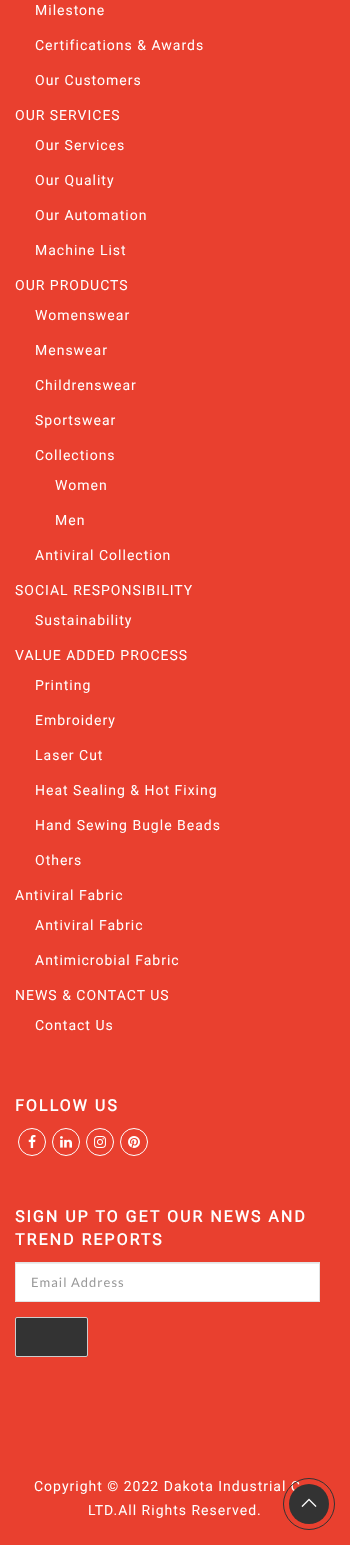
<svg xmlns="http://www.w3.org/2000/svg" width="350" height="1545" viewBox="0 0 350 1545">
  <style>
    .t1 { font: 14px Roboto; letter-spacing: 1px; fill: #fff; }
    .t2 { font: bold 16px Roboto; letter-spacing: 2px; fill: #fff; }
    .t3 { font: 13px Lato; letter-spacing: 1px; fill: #999; }
  </style>
  <rect width="100%" height="100%" fill="#e9402f"/>
  <text x="35" y="15" class="t1">Milestone</text>
  <text x="35" y="50" class="t1">Certifications &amp; Awards</text>
  <text x="35" y="85" class="t1">Our Customers</text>
  <text x="15" y="120" class="t1">OUR SERVICES</text>
  <text x="35" y="150" class="t1">Our Services</text>
  <text x="35" y="185" class="t1">Our Quality</text>
  <text x="35" y="220" class="t1">Our Automation</text>
  <text x="35" y="255" class="t1">Machine List</text>
  <text x="15" y="290" class="t1">OUR PRODUCTS</text>
  <text x="35" y="320" class="t1">Womenswear</text>
  <text x="35" y="355" class="t1">Menswear</text>
  <text x="35" y="390" class="t1">Childrenswear</text>
  <text x="35" y="425" class="t1">Sportswear</text>
  <text x="35" y="460" class="t1">Collections</text>
  <text x="55" y="490" class="t1">Women</text>
  <text x="55" y="525" class="t1">Men</text>
  <text x="35" y="560" class="t1">Antiviral Collection</text>
  <text x="15" y="595" class="t1">SOCIAL RESPONSIBILITY</text>
  <text x="35" y="625" class="t1">Sustainability</text>
  <text x="15" y="660" class="t1">VALUE ADDED PROCESS</text>
  <text x="35" y="690" class="t1">Printing</text>
  <text x="35" y="725" class="t1">Embroidery</text>
  <text x="35" y="760" class="t1">Laser Cut</text>
  <text x="35" y="795" class="t1">Heat Sealing &amp; Hot Fixing</text>
  <text x="35" y="830" class="t1">Hand Sewing Bugle Beads</text>
  <text x="35" y="865" class="t1">Others</text>
  <text x="15" y="900" class="t1">Antiviral Fabric</text>
  <text x="35" y="930" class="t1">Antiviral Fabric</text>
  <text x="35" y="965" class="t1">Antimicrobial Fabric</text>
  <text x="15" y="1000" class="t1">NEWS &amp; CONTACT US</text>
  <text x="35" y="1030" class="t1">Contact Us</text>
  <text x="15" y="1111" class="t2">FOLLOW US</text>
  <circle cx="32" cy="1142" r="13.5" fill="none" stroke="#fff"/>
  <image x="28" y="1135" width="8" height="13" href="images/1.png"/>
  <circle cx="66" cy="1142" r="13.5" fill="none" stroke="#fff"/>
  <image x="60" y="1136" width="12" height="12" href="images/2.png"/>
  <circle cx="100" cy="1142" r="13.5" fill="none" stroke="#fff"/>
  <image x="94" y="1136" width="12" height="12" href="images/3.png"/>
  <circle cx="134" cy="1142" r="13.5" fill="none" stroke="#fff"/>
  <image x="128" y="1136" width="12" height="12" href="images/4.png"/>
  <text x="15" y="1222" class="t2">SIGN UP TO GET OUR NEWS AND</text>
  <text x="15" y="1245" class="t2">TREND REPORTS</text>
  <rect x="16" y="1264" width="303" height="37" fill="#fff"/>
  <rect x="16" y="1263" width="303" height="1" fill="#ececec"/>
  <rect x="15.5" y="1262.5" width="304" height="39" fill="none" stroke="#e3e3e3"/>
  <text x="31" y="1287" class="t3">Email Address</text>
  <rect x="15.5" y="1317.5" width="72" height="39" rx="1.5" fill="#333" stroke="#ccc"/>
  <text x="34" y="1491" class="t1">Copyright © 2022 Dakota Industrial C</text>
  <text x="88" y="1515" class="t1">LTD.All Rights Reserved.</text>
  <circle cx="309" cy="1504" r="25.5" fill="none" stroke="#333"/>
  <circle cx="309" cy="1504" r="20" fill="#333"/>
  <image x="301" y="1498" width="16" height="9" href="images/5.png"/>
</svg>
